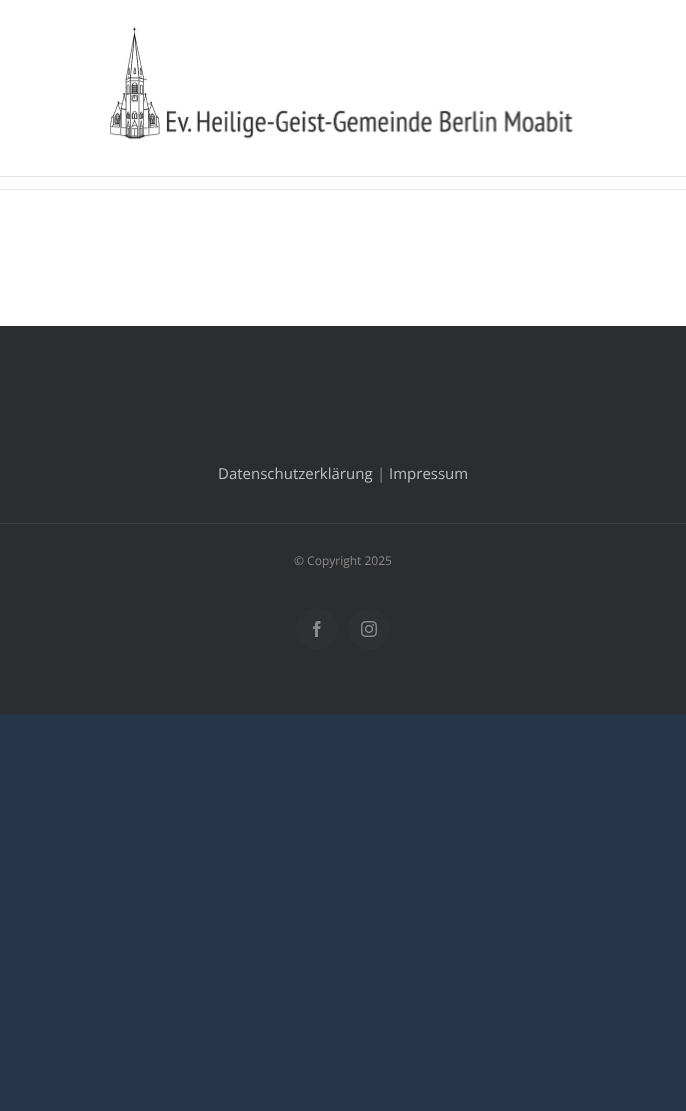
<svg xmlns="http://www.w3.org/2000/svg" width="686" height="1111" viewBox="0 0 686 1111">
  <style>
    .t1 { font: 15px Open Sans; fill: #bfbfbf; }
    .t2 { font: 15px Open Sans; fill: #8c8989; }
    .t3 { font: 12px Open Sans; fill: #8c8989; }
  </style>
  <rect width="100%" height="100%" fill="#25354a"/>
  <rect x="0" y="0" width="686" height="176" fill="#fff"/>
  <rect x="0" y="176" width="686" height="1" fill="#e5e5e5"/>
  <image x="110" y="25" width="463" height="115" href="images/1.png"/>
  <rect x="0" y="177" width="686" height="12" fill="#fff"/>
  <rect x="0" y="189" width="686" height="1" fill="#e5e5e5"/>
  <rect x="0" y="190" width="686" height="136" fill="#fff"/>
  <rect x="0" y="326" width="686" height="197" fill="#2c2d2f"/>
  <text x="218" y="479" class="t1">Datenschutzerklärung</text>
  <text x="377" y="479" class="t2">|</text>
  <text x="389" y="479" class="t1">Impressum</text>
  <rect x="0" y="524" width="686" height="190" fill="#2c2d2f"/>
  <rect x="0" y="523" width="686" height="1" fill="#404042"/>
  <text x="294" y="565" class="t3">© Copyright 2025</text>
  <circle cx="317" cy="629" r="21" fill="#2f3032"/>
  <image x="313" y="621" width="8" height="16" href="images/2.png"/>
  <circle cx="369" cy="629" r="21" fill="#2f3032"/>
  <image x="361" y="621" width="16" height="16" href="images/3.png"/>
</svg>
